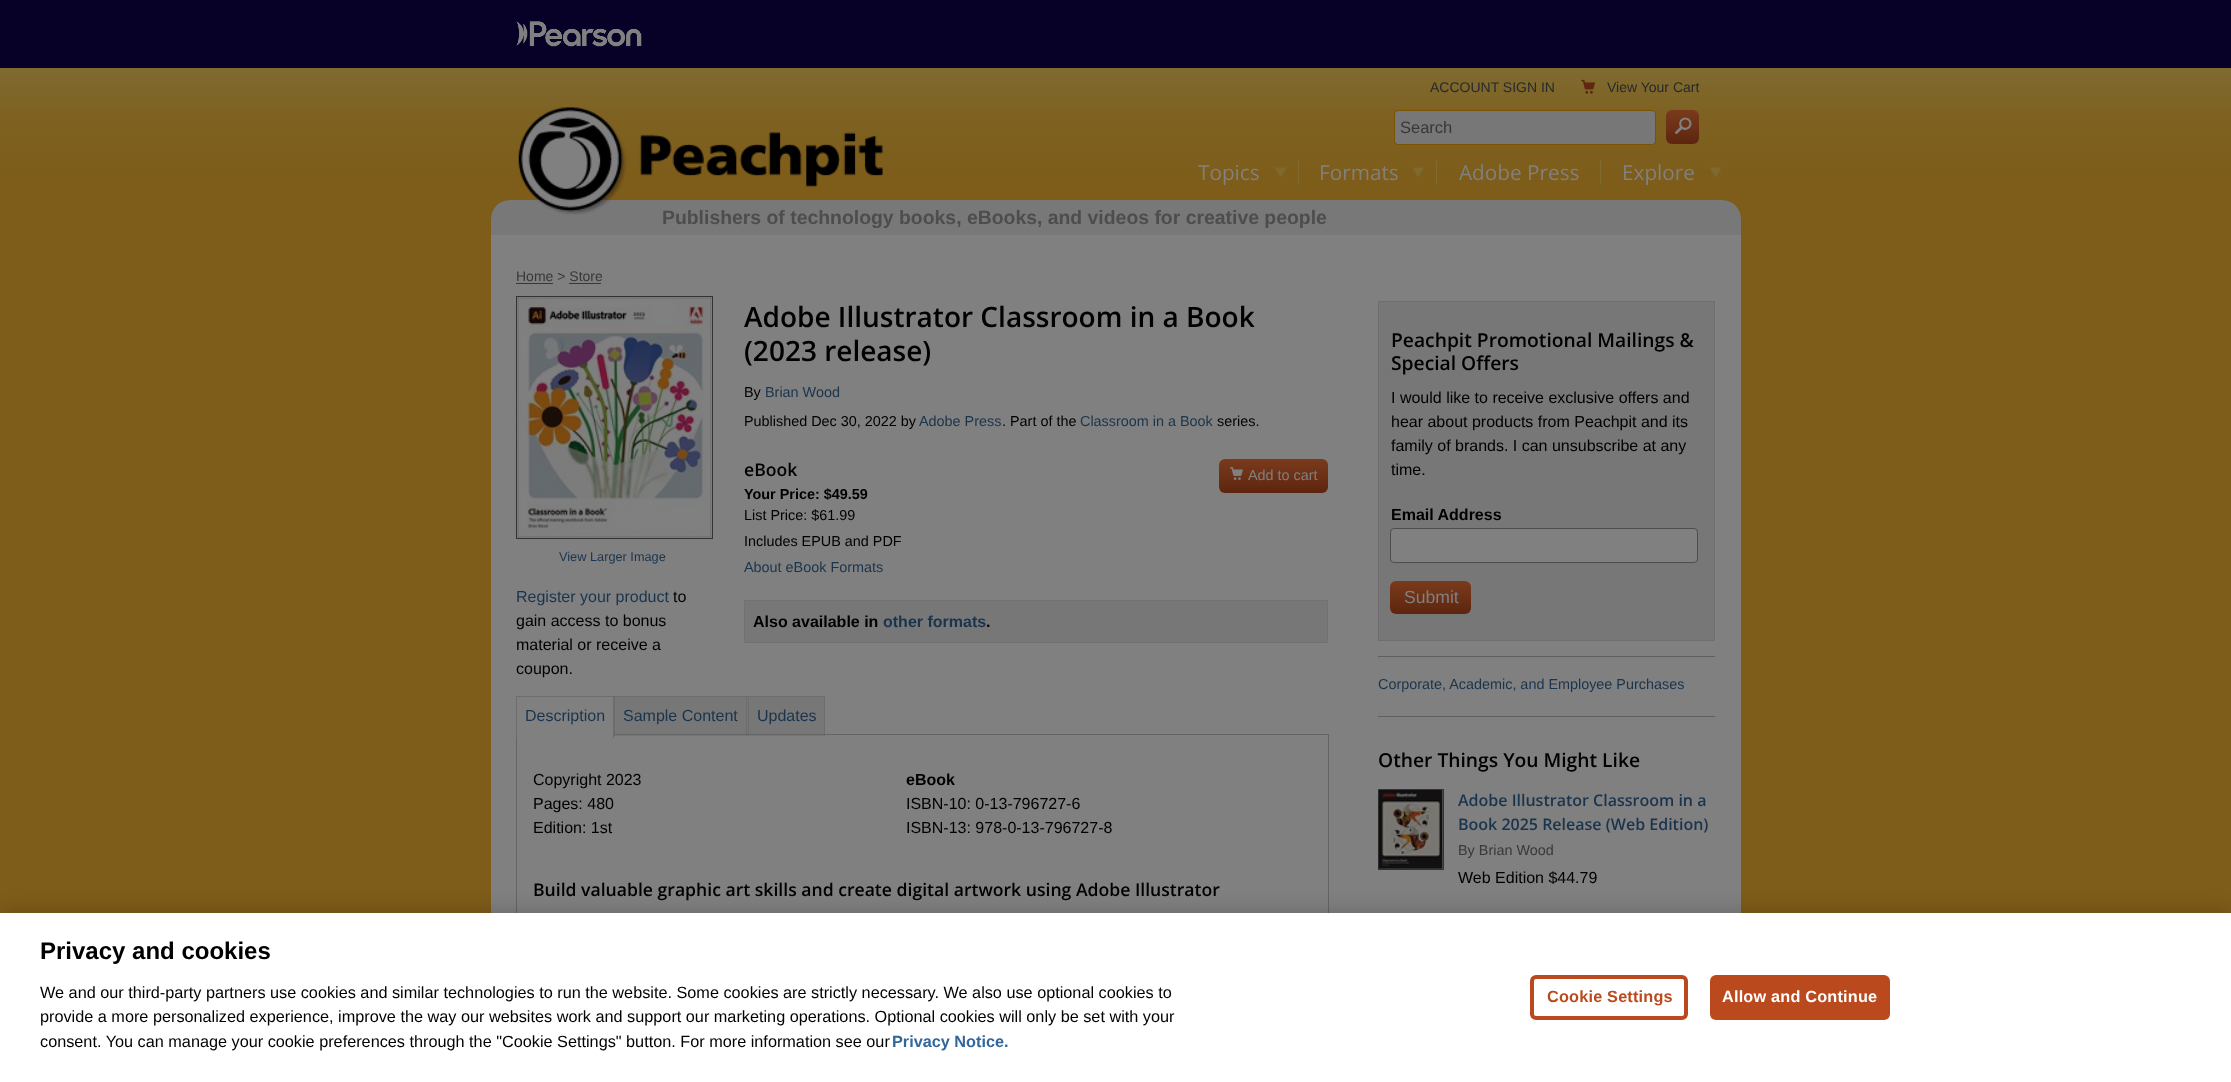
<svg xmlns="http://www.w3.org/2000/svg" width="2231" height="1082" viewBox="0 0 2231 1082">
  <style>
    .t1 { font: bold 19.4px Liberation Sans; fill: #4d4d4d; }
    .t2 { font: 14px Liberation Sans; fill: #25292f; }
    .t3 { font: 16.5px Liberation Sans; fill: #373839; }
    .t4 { font: 16.5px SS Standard; fill: #808080; }
    .t5 { font: 20.75px Open Sans; fill: #808080; }
    .t6 { font: 14px Liberation Sans; fill: #373839; }
    .t7 { font: 12.75px Liberation Sans; fill: #1a344d; }
    .t8 { font: 16px Liberation Sans; fill: #1a344d; }
    .t9 { font: 16px Liberation Sans; fill: #000; }
    .t10 { font: 600 28px Open Sans; fill: #000; }
    .t11 { font: 14.4px Liberation Sans; fill: #000; }
    .t12 { font: 14.4px Liberation Sans; fill: #1a344d; }
    .t13 { font: 600 17.6px Open Sans; fill: #000; }
    .t14 { font: 14.4px Liberation Sans; fill: #808080; }
    .t15 { font: bold 14.4px Liberation Sans; fill: #000; }
    .t16 { font: bold 16px Liberation Sans; fill: #000; }
    .t17 { font: bold 16px Liberation Sans; fill: #1a344d; }
    .t18 { font: 600 19.25px Open Sans; fill: #000; }
    .t19 { font: 17.6px Liberation Sans; fill: #808080; }
    .t20 { font: 600 16px Open Sans; fill: #1a344d; }
    .t21 { font: 14.4px Liberation Sans; fill: #373839; }
    .t22 { font: bold 24px Liberation Sans; fill: #000; }
    .t23 { font: 16.25px Liberation Sans; fill: #000; }
    .t24 { font: bold 16.25px Liberation Sans; fill: #33679a; }
    .t25 { font: bold 16.25px Liberation Sans; letter-spacing: 0.2px; fill: #ba4a1e; }
    .t26 { font: bold 16.25px Liberation Sans; letter-spacing: 0.2px; fill: #fff; }
  </style>
  <defs>
    <linearGradient id="g1" gradientUnits="userSpaceOnUse" x1="1683" y1="110" x2="1683" y2="144"><stop offset="0" stop-color="#7a3b1c"/><stop offset="1" stop-color="#5d250f"/></linearGradient>
    <linearGradient id="g2" gradientUnits="userSpaceOnUse" x1="1273" y1="459" x2="1273" y2="493"><stop offset="0" stop-color="#7a3b1c"/><stop offset="1" stop-color="#5d250f"/></linearGradient>
    <linearGradient id="g3" gradientUnits="userSpaceOnUse" x1="1431" y1="581" x2="1431" y2="614"><stop offset="0" stop-color="#7a3b1c"/><stop offset="1" stop-color="#5d250f"/></linearGradient>
  </defs>
  <rect width="100%" height="100%" fill="#7e5c19"/>
  <image x="0" y="68" width="2231" height="101" href="images/1.png"/>
  <rect x="0" y="0" width="2231" height="68" fill="#070027"/>
  <image x="516" y="21" width="126" height="26" href="images/2.png"/>
  <path d="M510 200H1722C1732.5 200 1741 208.5 1741 219V235H491V219C491 208.5 499.5 200 510 200Z" fill="#787878"/>
  <text x="662" y="224" class="t1">Publishers of technology books, eBooks, and videos for creative people</text>
  <image x="518" y="107" width="365" height="108" href="images/3.png"/>
  <text x="1430" y="92" class="t2">ACCOUNT SIGN IN</text>
  <image x="1581" y="79" width="15" height="15" href="images/4.png"/>
  <text x="1607" y="92" class="t2">View Your Cart</text>
  <rect x="1394.5" y="110.5" width="261" height="34" rx="3.5" fill="#777" stroke="#795202"/>
  <text x="1400" y="133" class="t3">Search</text>
  <rect x="1666" y="110" width="33" height="34" rx="6" fill="url(#g1)"/>
  <text x="1675" y="134" class="t4">🔎</text>
  <image x="1275" y="167" width="12" height="11" href="images/5.png"/>
  <text x="1198" y="180" class="t5">Topics</text>
  <image x="1412" y="167" width="12" height="11" href="images/6.png"/>
  <rect x="1298" y="160" width="1" height="25" fill="#7f6b2f"/>
  <text x="1319" y="180" class="t5">Formats</text>
  <rect x="1436" y="160" width="1" height="25" fill="#7f6b2f"/>
  <text x="1459" y="180" class="t5">Adobe Press</text>
  <image x="1710" y="167" width="12" height="11" href="images/7.png"/>
  <rect x="1600" y="160" width="1" height="25" fill="#7f6b2f"/>
  <text x="1622" y="180" class="t5">Explore</text>
  <rect x="491" y="235" width="1250" height="678" fill="#808080"/>
  <text x="516" y="281" class="t6">Home &gt; Store</text>
  <rect x="516" y="283" width="37" height="1" fill="#373839"/>
  <rect x="569" y="283" width="32" height="1" fill="#373839"/>
  <rect x="516.5" y="296.5" width="196" height="242" fill="none" stroke="#333"/>
  <image x="517" y="297" width="195" height="241" href="images/8.png"/>
  <text x="559" y="561" class="t7">View Larger Image</text>
  <text x="516" y="602" class="t8">Register your product</text>
  <text x="673" y="602" class="t9">to</text>
  <text x="516" y="626" class="t9">gain access to bonus</text>
  <text x="516" y="650" class="t9">material or receive a</text>
  <text x="516" y="674" class="t9">coupon.</text>
  <text x="744" y="327" class="t10">Adobe Illustrator Classroom in a Book</text>
  <text x="744" y="361" class="t10">(2023 release)</text>
  <text x="744" y="397" class="t11">By</text>
  <text x="765" y="397" class="t12">Brian Wood</text>
  <text x="744" y="426" class="t11">Published Dec 30, 2022 by</text>
  <text x="919" y="426" class="t12">Adobe Press</text>
  <text x="1002" y="426" class="t11">. Part of the</text>
  <text x="1080" y="426" class="t12">Classroom in a Book</text>
  <text x="1217" y="426" class="t11">series.</text>
  <text x="744" y="476" class="t13">eBook</text>
  <rect x="1219" y="459" width="109" height="34" rx="6" fill="url(#g2)"/>
  <image x="1230" y="467" width="13" height="13" href="images/9.png"/>
  <text x="1248" y="480" class="t14">Add to cart</text>
  <text x="744" y="499" class="t15">Your Price: $49.59</text>
  <text x="744" y="520" class="t11">List Price: $61.99</text>
  <text x="744" y="546" class="t11">Includes EPUB and PDF</text>
  <text x="744" y="572" class="t12">About eBook Formats</text>
  <rect x="744.5" y="600.5" width="583" height="42" fill="#777" stroke="#717171"/>
  <text x="753" y="627" class="t16">Also available in</text>
  <text x="883" y="627" class="t17">other formats</text>
  <text x="986" y="627" class="t16">.</text>
  <rect x="615" y="697" width="133" height="39" fill="#777"/>
  <rect x="516" y="696" width="309" height="1" fill="#6c6d6e"/>
  <rect x="746" y="696" width="1" height="40" fill="#6c6d6e"/>
  <rect x="614" y="696" width="1" height="40" fill="#6c6d6e"/>
  <rect x="749" y="697" width="75" height="39" fill="#777"/>
  <rect x="824" y="696" width="1" height="40" fill="#6c6d6e"/>
  <rect x="748" y="696" width="1" height="40" fill="#6c6d6e"/>
  <rect x="516.5" y="734.5" width="812" height="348" fill="none" stroke="#646465"/>
  <rect x="517" y="734" width="96" height="1" fill="#808080"/>
  <rect x="613" y="696" width="1" height="42" fill="#6c6d6e"/>
  <rect x="516" y="696" width="1" height="42" fill="#6c6d6e"/>
  <text x="525" y="721" class="t8">Description</text>
  <text x="623" y="721" class="t8">Sample Content</text>
  <text x="757" y="721" class="t8">Updates</text>
  <text x="533" y="785" class="t9">Copyright 2023</text>
  <text x="533" y="809" class="t9">Pages: 480</text>
  <text x="533" y="833" class="t9">Edition: 1st</text>
  <text x="906" y="785" class="t16">eBook</text>
  <text x="906" y="809" class="t9">ISBN-10: 0-13-796727-6</text>
  <text x="906" y="833" class="t9">ISBN-13: 978-0-13-796727-8</text>
  <text x="533" y="896" class="t13">Build valuable graphic art skills and create digital artwork using Adobe Illustrator</text>
  <rect x="1378.5" y="301.5" width="336" height="339" fill="#777" stroke="#6f6f6f"/>
  <text x="1391" y="347" class="t18">Peachpit Promotional Mailings &amp;</text>
  <text x="1391" y="370" class="t18">Special Offers</text>
  <text x="1391" y="403" class="t9">I would like to receive exclusive offers and</text>
  <text x="1391" y="427" class="t9">hear about products from Peachpit and its</text>
  <text x="1391" y="451" class="t9">family of brands. I can unsubscribe at any</text>
  <text x="1391" y="475" class="t9">time.</text>
  <text x="1391" y="520" class="t16">Email Address</text>
  <rect x="1390.5" y="528.5" width="307" height="34" rx="3.5" fill="#808080" stroke="#4d4d4d"/>
  <rect x="1390" y="581" width="81" height="33" rx="6" fill="url(#g3)"/>
  <text x="1404" y="603" class="t19">Submit</text>
  <rect x="1378" y="656" width="337" height="1" fill="#5f5f5f"/>
  <rect x="1378" y="716" width="337" height="1" fill="#5f5f5f"/>
  <text x="1378" y="689" class="t12">Corporate, Academic, and Employee Purchases</text>
  <text x="1378" y="767" class="t18">Other Things You Might Like</text>
  <rect x="1378.5" y="789.5" width="65" height="80" fill="none" stroke="#333"/>
  <image x="1378" y="790" width="65" height="79" href="images/10.png"/>
  <text x="1458" y="806" class="t20">Adobe Illustrator Classroom in a</text>
  <text x="1458" y="830" class="t20">Book 2025 Release (Web Edition)</text>
  <text x="1458" y="855" class="t21">By Brian Wood</text>
  <text x="1458" y="883" class="t9">Web Edition $44.79</text>
  <rect x="0" y="913" width="2231" height="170" fill="#00000033" filter="blur(11px)"/>
  <rect x="0" y="913" width="2231" height="169" fill="#fff"/>
  <text x="40" y="959" class="t22">Privacy and cookies</text>
  <text x="40" y="998" class="t23">We and our third-party partners use cookies and similar technologies to run the website. Some cookies are strictly necessary. We also use optional cookies to</text>
  <text x="40" y="1022" class="t23">provide a more personalized experience, improve the way our websites work and support our marketing operations. Optional cookies will only be set with your</text>
  <text x="40" y="1047" class="t23">consent. You can manage your cookie preferences through the "Cookie Settings" button. For more information see our</text>
  <text x="892" y="1047" class="t24">Privacy Notice.</text>
  <rect x="1532" y="977" width="154" height="41" rx="4" fill="none" stroke="#ba4a1e" stroke-width="4"/>
  <text x="1547" y="1002" class="t25">Cookie Settings</text>
  <rect x="1710" y="975" width="180" height="45" rx="6" fill="#ba4a1e"/>
  <text x="1722" y="1002" class="t26">Allow and Continue</text>
</svg>
